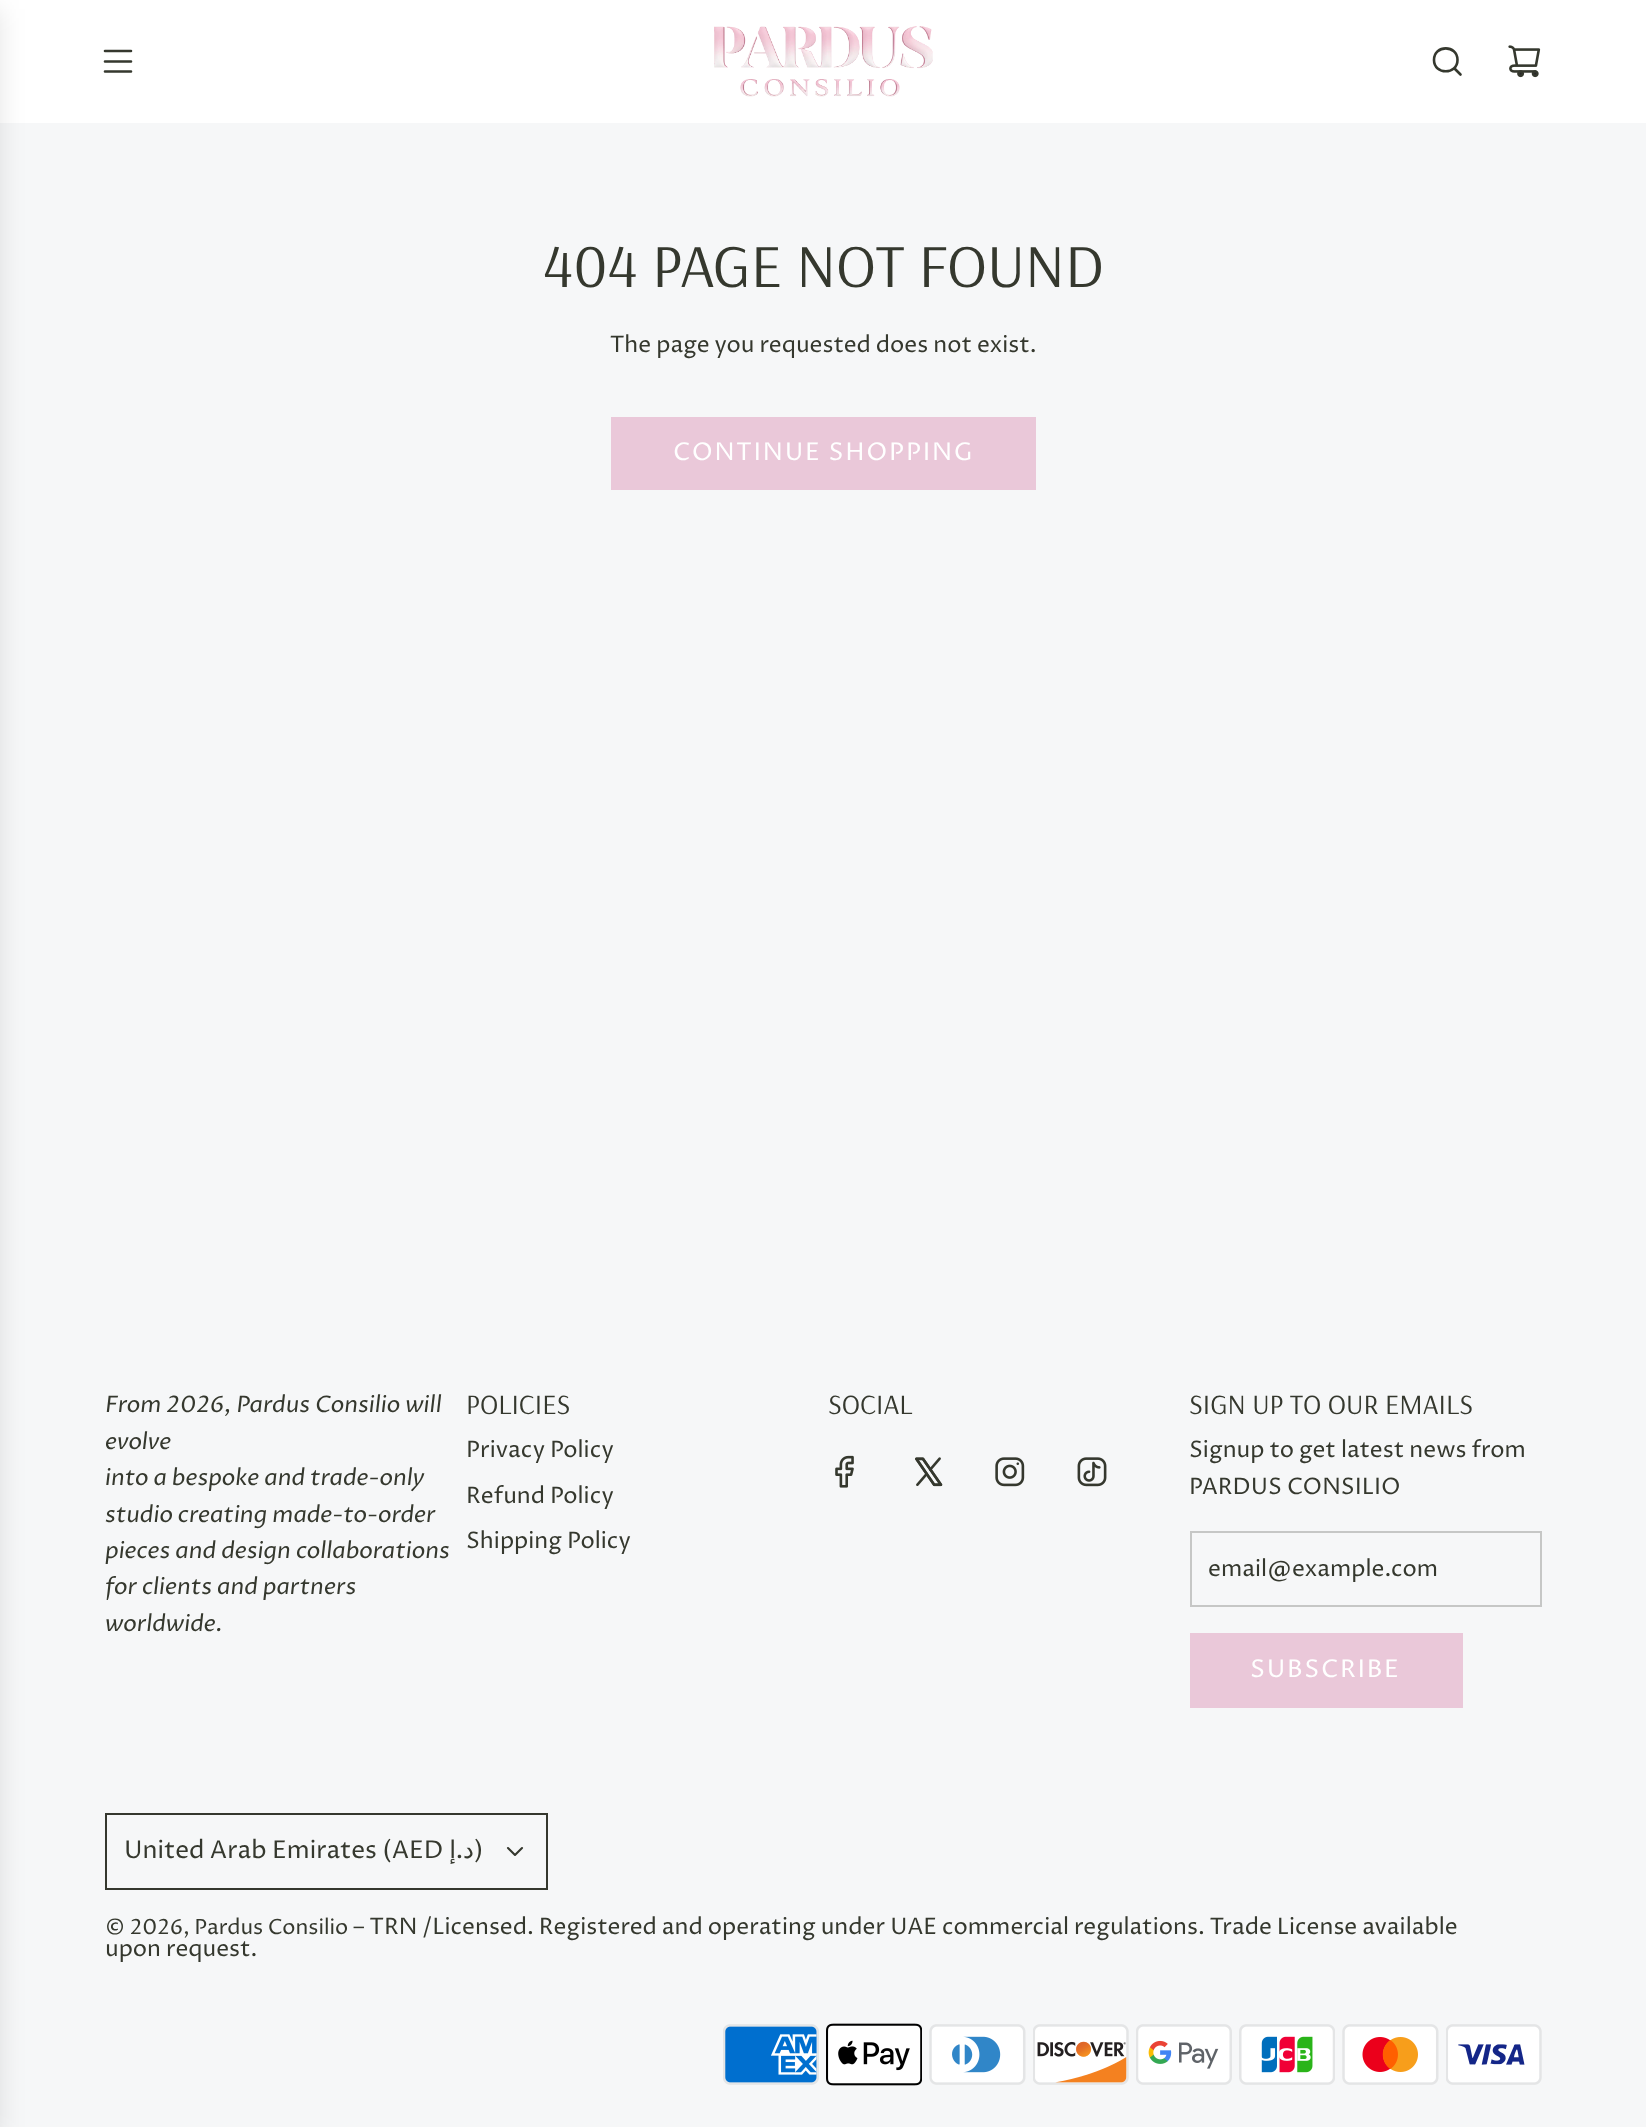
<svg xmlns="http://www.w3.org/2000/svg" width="1646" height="2127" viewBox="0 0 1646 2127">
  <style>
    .t1 { font: 61.25px Arsenal; fill: #35382e; }
    .t2 { font: 22.75px Proza Libre; fill: #35382e; }
    .t3 { font: 24.5px Proza Libre; letter-spacing: 1.75px; fill: #fff; }
    .t4 { font: italic 22.75px Proza Libre; fill: #35382e; }
    .t5 { font: 28px Arsenal; fill: #35382e; }
    .t6 { font: 24.5px Proza Libre; fill: #35382e; }
    .t7 { font: 24.5px DejaVu Sans; direction: rtl; fill: #35382e; }
    .t8 { font: 24.5px Proza Libre; direction: rtl; fill: #35382e; }
    .t9 { font: 21px Proza Libre; fill: #35382e; }
  </style>
  <rect width="100%" height="100%" fill="#f6f7f8"/>
  <rect x="0" y="0" width="1646" height="123" fill="#fff"/>
  <rect x="-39" y="9" width="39" height="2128" fill="#0000001a" filter="blur(13px)"/>
  <path d="M105 51H131M105 61.5H131M105 71.5H131" fill="none" stroke="#35382e" stroke-width="2.6" stroke-linecap="round" stroke-linejoin="round"/>
  <image x="714" y="26" width="219" height="71" href="images/1.png"/>
  <path d="M1454.5 68.5L1460.5 74.5M1434 60C1434 75 1457.5 75 1457.5 60C1457.5 44.5 1434 44.5 1434 60Z" fill="none" stroke="#35382e" stroke-width="2.6" stroke-linecap="round" stroke-linejoin="round"/>
  <image x="1508" y="45" width="33" height="33" href="images/2.png"/>
  <text x="543" y="287" class="t1">404 PAGE NOT FOUND</text>
  <text x="610" y="352" class="t2">The page you requested does not exist.</text>
  <rect x="611" y="417" width="425" height="73" fill="#eac8d9"/>
  <text x="673" y="460" class="t3">CONTINUE SHOPPING</text>
  <text x="105" y="1412" class="t4">From 2026, Pardus Consilio will</text>
  <text x="105" y="1449" class="t4">evolve</text>
  <text x="105" y="1485" class="t4">into a bespoke and trade-only</text>
  <text x="105" y="1522" class="t4">studio creating made-to-order</text>
  <text x="105" y="1558" class="t4">pieces and design collaborations</text>
  <text x="105" y="1594" class="t4">for clients and partners</text>
  <text x="105" y="1631" class="t4">worldwide.</text>
  <text x="466" y="1414" class="t5">POLICIES</text>
  <text x="466" y="1457" class="t2">Privacy Policy</text>
  <text x="466" y="1503" class="t2">Refund Policy</text>
  <text x="466" y="1548" class="t2">Shipping Policy</text>
  <text x="828" y="1414" class="t5">SOCIAL</text>
  <image x="835" y="1455" width="19" height="33" href="images/3.png"/>
  <image x="915" y="1457" width="28" height="30" href="images/4.png"/>
  <image x="995" y="1457" width="30" height="30" href="images/5.png"/>
  <image x="1077" y="1457" width="30" height="30" href="images/6.png"/>
  <text x="1189" y="1414" class="t5">SIGN UP TO OUR EMAILS</text>
  <text x="1189" y="1457" class="t2">Signup to get latest news from</text>
  <text x="1189" y="1494" class="t2">PARDUS CONSILIO</text>
  <rect x="1191" y="1532" width="350" height="74" fill="none" stroke="#c6c7c6" stroke-width="2"/>
  <text x="1208" y="1576" class="t2">email@example.com</text>
  <rect x="1190" y="1633" width="273" height="75" fill="#eac8d9"/>
  <text x="1250" y="1677" class="t3">SUBSCRIBE</text>
  <rect x="106" y="1814" width="441" height="75" fill="none" stroke="#35382e" stroke-width="2"/>
  <text x="124" y="1858" class="t6">United Arab Emirates (AED</text>
  <text x="456" y="1858" class="t7">إ</text>
  <text x="463" y="1858" class="t8">.</text>
  <text x="474" y="1858" class="t7">د</text>
  <text x="474" y="1858" class="t6">)</text>
  <path d="M508 1848L515 1855L522 1848" fill="none" stroke="#35382e" stroke-width="2.1" stroke-linecap="round" stroke-linejoin="round"/>
  <text x="105" y="1934" class="t9">© 2026, Pardus Consilio</text>
  <text x="353" y="1934" class="t2">– TRN /Licensed. Registered and operating under UAE commercial regulations. Trade License available</text>
  <text x="105" y="1956" class="t2">upon request.</text>
  <image x="723" y="2024" width="96" height="61" href="images/7.png"/>
  <image x="826" y="2023" width="96" height="63" href="images/8.png"/>
  <image x="929" y="2024" width="97" height="61" href="images/9.png"/>
  <image x="1033" y="2024" width="96" height="61" href="images/10.png"/>
  <image x="1136" y="2024" width="96" height="61" href="images/11.png"/>
  <image x="1239" y="2024" width="96" height="61" href="images/12.png"/>
  <image x="1342" y="2024" width="97" height="61" href="images/13.png"/>
  <image x="1446" y="2024" width="96" height="61" href="images/14.png"/>
</svg>
